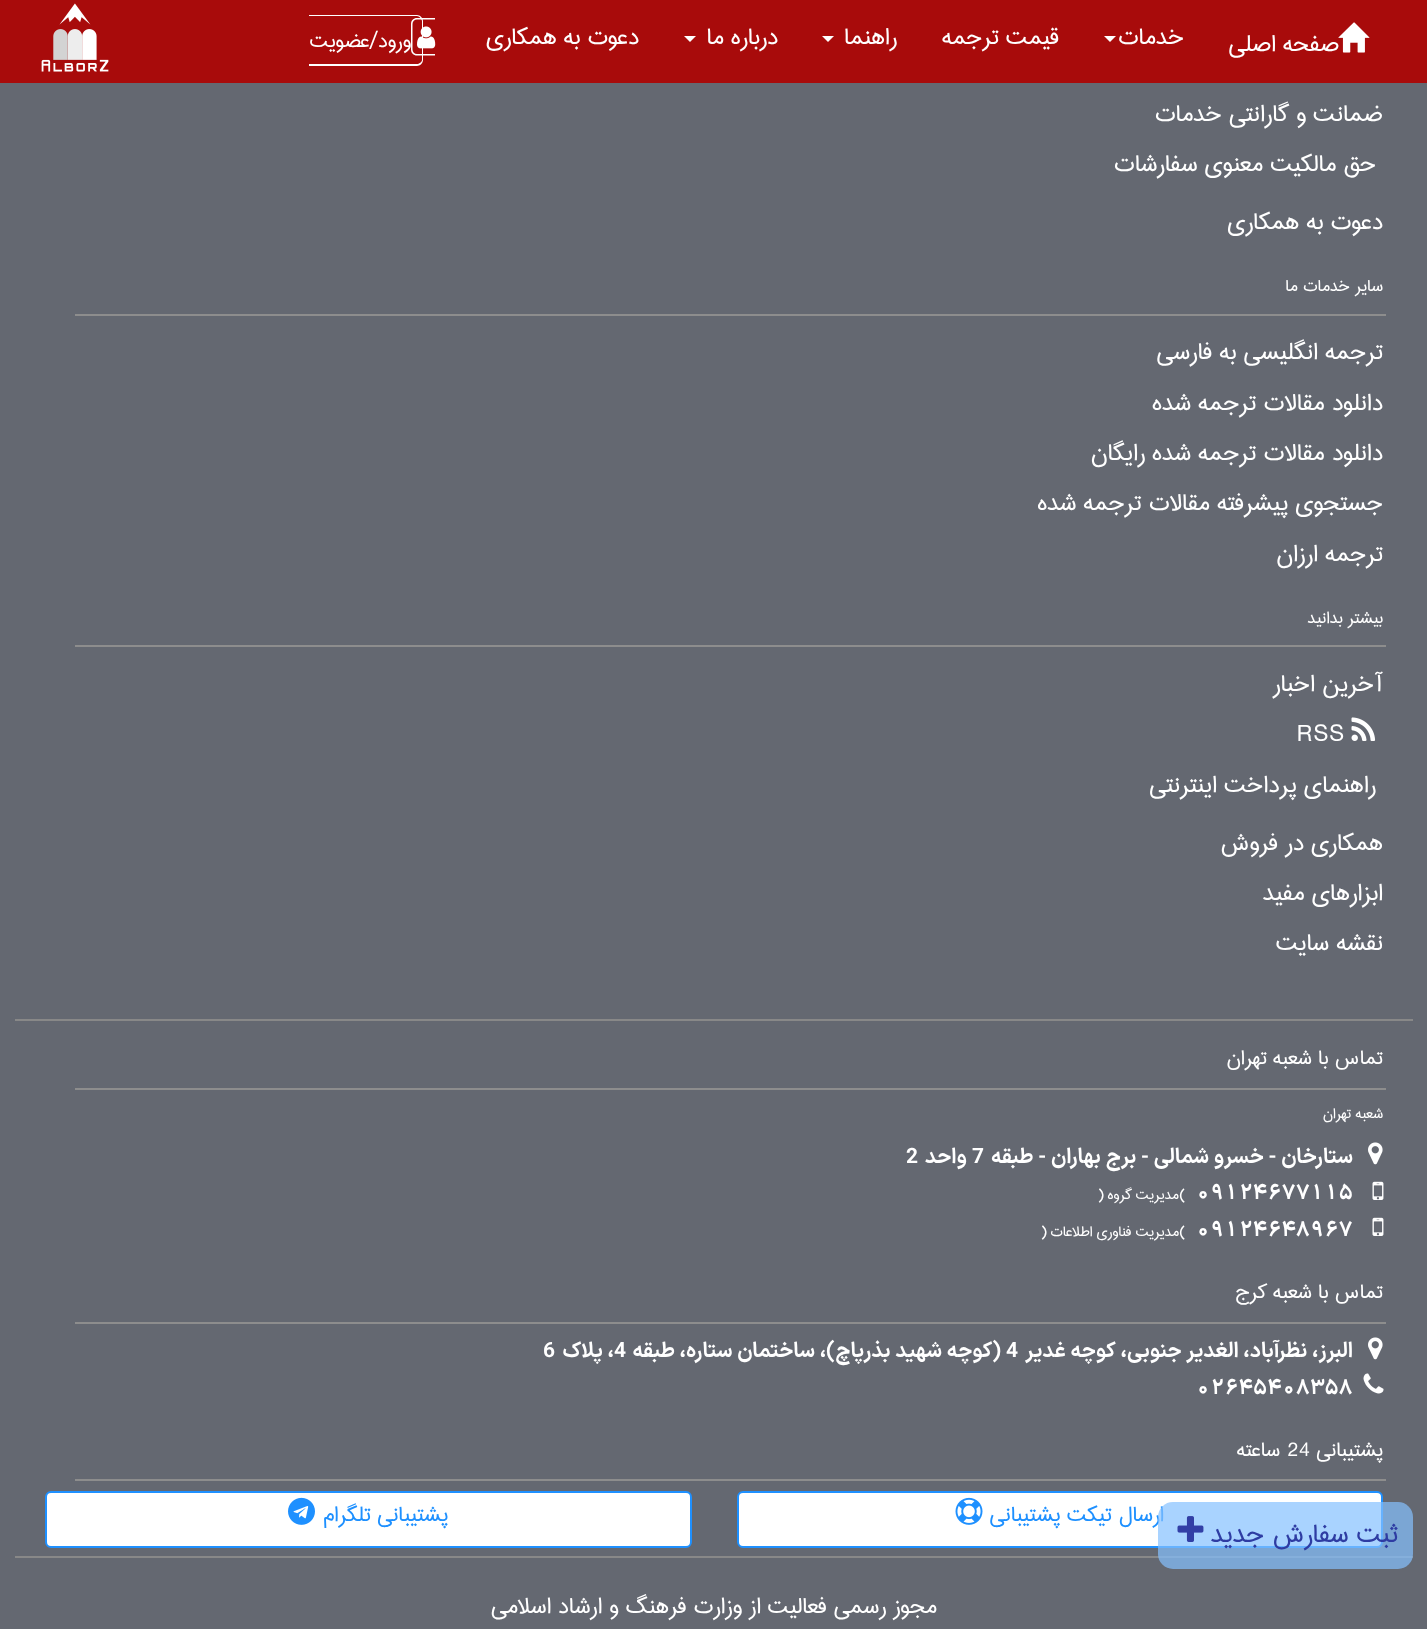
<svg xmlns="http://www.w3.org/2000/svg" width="1427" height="1629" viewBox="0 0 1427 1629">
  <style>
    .t1 { font: 29.5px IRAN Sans; direction: rtl; fill: #fff; }
    .t2 { font: 25.5px IRAN Sans; direction: rtl; fill: #fff; }
    .t3 { font: 30px IRAN Sans; direction: rtl; fill: #fff; }
    .t4 { font: 21px IRAN Sans; direction: rtl; fill: #fff; }
    .t5 { font: 30px IRAN Sans; fill: #fff; }
    .t6 { font: 18px IRAN Sans; direction: rtl; fill: #fff; }
    .t7 { font: bold 21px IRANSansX; direction: rtl; fill: #fff; }
    .t8 { font: bold 21px IRANSansX; fill: #fff; }
    .t9 { font: bold 21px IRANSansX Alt; fill: #fff; }
    .t10 { font: 18px IRAN Sans; fill: #fff; }
    .t11 { font: 25.5px IRAN Sans; fill: #fff; }
    .t12 { font: 27px IRAN Sans; direction: rtl; fill: #1e90ff; }
    .t13 { font: 28.5px IRAN Sans; direction: rtl; fill: #fff; }
    .t14 { font: 33px IRAN Sans; direction: rtl; fill: #2e3ca3; }
  </style>
  <rect width="100%" height="100%" fill="#646871"/>
  <rect x="0" y="0" width="1427" height="83" fill="#a80b0b"/>
  <text x="1339" y="51" class="t1">صفحه اصلی</text>
  <image x="1338" y="22" width="32" height="31" href="images/1.png"/>
  <text x="1184" y="44" class="t1">خدمات</text>
  <path d="M1104 36H1116L1110 42Z" fill="#fff"/>
  <text x="1059" y="44" class="t1">قیمت ترجمه</text>
  <text x="897" y="44" class="t1">راهنما</text>
  <path d="M822 36H834L828 42Z" fill="#fff"/>
  <text x="778" y="44" class="t1">درباره ما</text>
  <path d="M684 36H696L690 42Z" fill="#fff"/>
  <text x="639" y="44" class="t1">دعوت به همکاری</text>
  <path d="M417 18H435V55.5H417C413.5 55.5 411 53 411 49.5V24C411 20.5 413.5 18 417 18ZM417 19.5H435V54H417C414.5 54 412.5 52 412.5 49.5V24C412.5 21.5 414.5 19.5 417 19.5Z" fill="#fff" fill-rule="evenodd"/>
  <path d="M309 15H417C420 15 423 18 423 21V60C423 63 420 66 417 66H309ZM309 16H417C419 16 422 19 422 21V60C422 62 419 64 417 64H309Z" fill="#fff" fill-rule="evenodd"/>
  <image x="417" y="26" width="19" height="23" href="images/2.png"/>
  <text x="411" y="47" class="t2">ورود/عضویت</text>
  <image x="41" y="3" width="68" height="69" href="images/3.png"/>
  <text x="1383" y="121" class="t3">ضمانت و گارانتی خدمات</text>
  <text x="1376" y="171" class="t3">حق مالکیت معنوی سفارشات</text>
  <text x="1383" y="229" class="t3">دعوت به همکاری</text>
  <text x="1383" y="291" class="t4">سایر خدمات ما</text>
  <rect x="75" y="314" width="1311" height="2" fill="#8d8d8d"/>
  <text x="1383" y="359" class="t3">ترجمه انگلیسی به فارسی</text>
  <text x="1383" y="410" class="t3">دانلود مقالات ترجمه شده</text>
  <text x="1383" y="460" class="t3">دانلود مقالات ترجمه شده رایگان</text>
  <text x="1383" y="510" class="t3">جستجوی پیشرفته مقالات ترجمه شده</text>
  <text x="1383" y="561" class="t3">ترجمه ارزان</text>
  <text x="1383" y="623" class="t4">بیشتر بدانید</text>
  <rect x="75" y="645" width="1311" height="2" fill="#8d8d8d"/>
  <text x="1383" y="691" class="t3">آخرین اخبار</text>
  <image x="1351" y="717" width="25" height="24" href="images/4.png"/>
  <text x="1297" y="741" class="t5">RSS</text>
  <text x="1376" y="792" class="t3">راهنمای پرداخت اینترنتی</text>
  <text x="1383" y="850" class="t3">همکاری در فروش</text>
  <text x="1383" y="900" class="t3">ابزارهای مفید</text>
  <text x="1383" y="950" class="t3">نقشه سایت</text>
  <rect x="15" y="1019" width="1398" height="2" fill="#888"/>
  <text x="1383" y="1064" class="t2">تماس با شعبه تهران</text>
  <rect x="75" y="1088" width="1311" height="2" fill="#8d8d8d"/>
  <text x="1383" y="1118" class="t6">شعبه تهران</text>
  <image x="1368" y="1142" width="15" height="23" href="images/5.png"/>
  <text x="1353" y="1163" class="t7">ستارخان - خسرو شمالی - برج بهاران - طبقه</text>
  <text x="972" y="1163" class="t8">7</text>
  <text x="967" y="1163" class="t7">واحد</text>
  <text x="906" y="1163" class="t8">2</text>
  <image x="1372" y="1181" width="12" height="19" href="images/6.png"/>
  <text x="1196" y="1199" class="t9">09124677115</text>
  <text x="1179" y="1199" class="t10">(</text>
  <text x="1179" y="1199" class="t6">مدیریت گروه</text>
  <text x="1098" y="1199" class="t10">)</text>
  <image x="1372" y="1217" width="12" height="19" href="images/6.png"/>
  <text x="1196" y="1236" class="t9">09124648967</text>
  <text x="1179" y="1236" class="t10">(</text>
  <text x="1179" y="1236" class="t6">مدیریت فناوری اطلاعات</text>
  <text x="1041" y="1236" class="t10">)</text>
  <text x="1383" y="1298" class="t2">تماس با شعبه کرج</text>
  <rect x="75" y="1322" width="1311" height="2" fill="#8d8d8d"/>
  <image x="1368" y="1337" width="15" height="23" href="images/5.png"/>
  <text x="1353" y="1357" class="t7">البرز، نظرآباد، الغدیر جنوبی، کوچه غدیر</text>
  <text x="1006" y="1357" class="t8">4</text>
  <text x="1001" y="1357" class="t7">(کوچه شهید بذرپاچ)، ساختمان ستاره، طبقه</text>
  <text x="614" y="1357" class="t8">4</text>
  <text x="614" y="1357" class="t7">، پلاک</text>
  <text x="543" y="1357" class="t8">6</text>
  <image x="1363" y="1373" width="21" height="21" href="images/7.png"/>
  <text x="1196" y="1394" class="t9">02645408358</text>
  <text x="1383" y="1456" class="t2">پشتیبانی</text>
  <text x="1287" y="1456" class="t11">24</text>
  <text x="1280" y="1456" class="t2">ساعته</text>
  <rect x="75" y="1479" width="1311" height="2" fill="#8d8d8d"/>
  <rect x="738" y="1492" width="644" height="55" rx="5" fill="#fff" stroke="#1e90ff" stroke-width="2"/>
  <text x="1164" y="1521" class="t12">ارسال تیکت پشتیبانی</text>
  <image x="955" y="1497" width="28" height="28" href="images/8.png"/>
  <rect x="46" y="1492" width="645" height="55" rx="5" fill="#fff" stroke="#1e90ff" stroke-width="2"/>
  <text x="448" y="1521" class="t12">پشتیبانی تلگرام</text>
  <image x="288" y="1497" width="27" height="28" href="images/9.png"/>
  <rect x="15" y="1556" width="1398" height="2" fill="#888"/>
  <text x="937" y="1613" class="t13">مجوز رسمی فعالیت از وزارت فرهنگ و ارشاد اسلامی</text>
  <rect x="1158" y="1502" width="255" height="67" rx="15" fill="#84c1ffb3"/>
  <text x="1398" y="1542" class="t14">ثبت سفارش</text>
  <text x="1264" y="1542" class="t14">جدید</text>
  <image x="1177" y="1516" width="27" height="26" href="images/10.png"/>
</svg>
